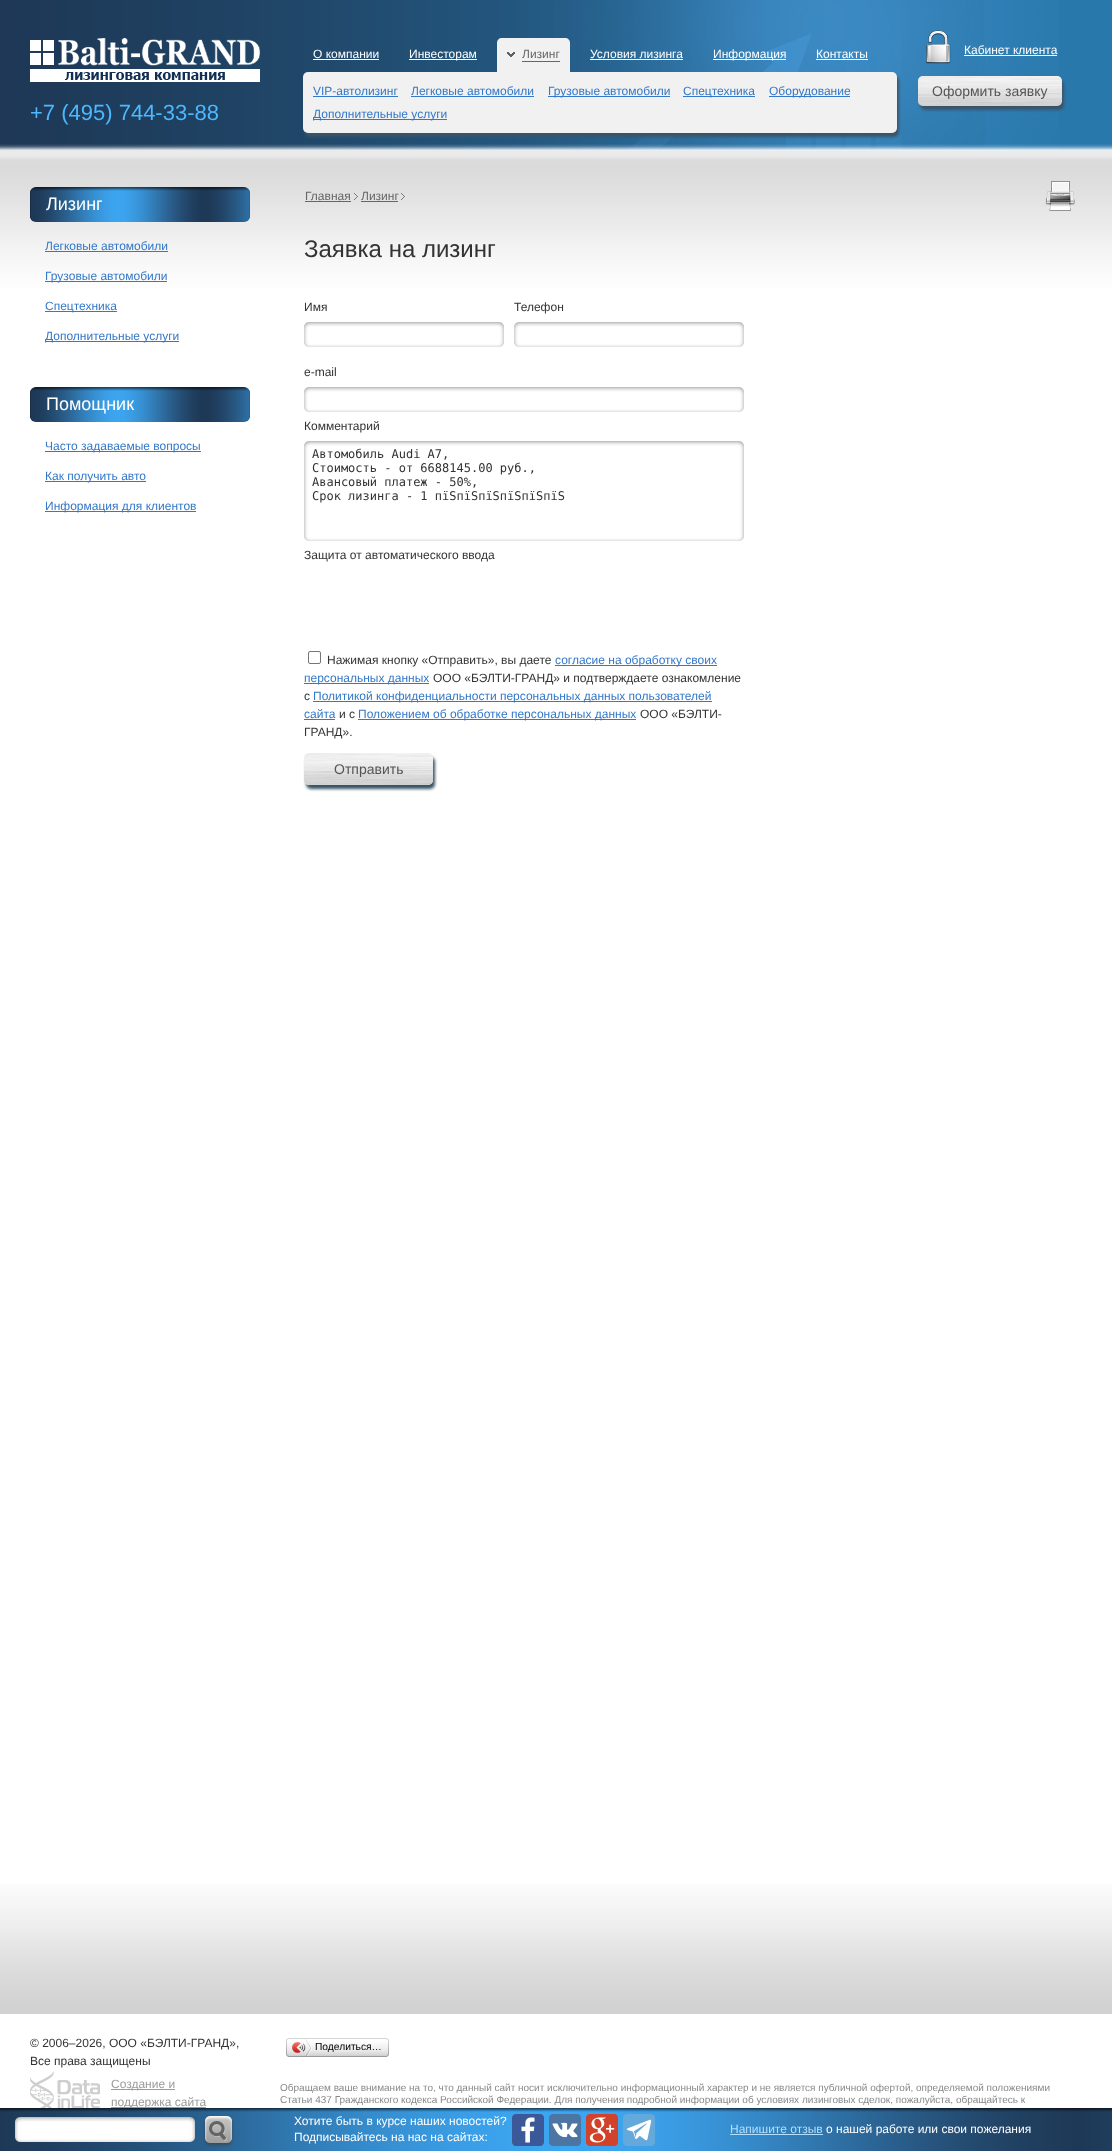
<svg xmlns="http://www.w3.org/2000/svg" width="1112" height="2151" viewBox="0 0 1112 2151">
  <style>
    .t1 { font: 12px Liberation Sans; fill: #fff; }
    .t2 { font: 12px Liberation Sans; fill: #666; }
    .t3 { font: 12px Liberation Sans; fill: #3478c8; }
    .t4 { font: 14px Liberation Sans; fill: #555; }
    .t5 { font: 22px Liberation Sans; fill: #4bb8ff; }
    .t6 { font: 18px Liberation Sans; fill: #fff; }
    .t7 { font: 24px Liberation Sans; fill: #333; }
    .t8 { font: 12px Liberation Sans; fill: #333; }
    .t9 { font: 12px DejaVu Sans Mono; fill: #333; }
    .t10 { font: 12px Liberation Sans; fill: #9b9b9b; }
    .t11 { font: 10.25px Liberation Sans; fill: #000; }
    .t12 { font: 10px Liberation Sans; fill: #888; }
    .t13 { font: 12px Liberation Sans; fill: #b2dfff; }
  </style>
  <rect width="100%" height="100%" fill="#fff"/>
  <image x="0" y="1884" width="1112" height="130" href="images/1.png"/>
  <rect x="985" y="0" width="127" height="151" fill="#2978ab"/>
  <image x="0" y="0" width="985" height="151" href="images/2.png"/>
  <image x="520" y="0" width="539" height="151" href="images/3.png"/>
  <image x="0" y="144" width="1112" height="144" href="images/4.png"/>
  <image x="30" y="38" width="230" height="44" href="images/5.png"/>
  <text x="313" y="58" class="t1">О компании</text>
  <rect x="313" y="59" width="66" height="1" fill="#fff"/>
  <path d="M502 38H565C568 38 570 40 570 43V72H497V43C497 40 499 38 502 38Z" fill="#f1f1f1"/>
  <image x="507" y="52" width="8" height="5" href="images/6.png"/>
  <text x="522" y="58" class="t2">Лизинг</text>
  <rect x="522" y="61" width="38" height="1" fill="#666"/>
  <rect x="305" y="76" width="594" height="61" rx="5" fill="#395468" filter="blur(1.5px)"/>
  <rect x="303" y="72" width="594" height="61" rx="5" fill="#f1f1f1"/>
  <text x="313" y="95" class="t3">VIP-автолизинг</text>
  <rect x="313" y="96" width="85" height="1" fill="#3478c8"/>
  <text x="411" y="95" class="t3">Легковые автомобили</text>
  <rect x="411" y="96" width="123" height="1" fill="#3478c8"/>
  <rect x="548" y="96" width="122" height="1" fill="#3478c8"/>
  <text x="548" y="95" class="t3">Грузовые автомобили</text>
  <rect x="683" y="96" width="72" height="1" fill="#3478c8"/>
  <text x="683" y="95" class="t3">Спецтехника</text>
  <rect x="769" y="96" width="81" height="1" fill="#3478c8"/>
  <text x="769" y="95" class="t3">Оборудование</text>
  <rect x="313" y="119" width="134" height="1" fill="#3478c8"/>
  <text x="313" y="118" class="t3">Дополнительные услуги</text>
  <rect x="409" y="59" width="68" height="1" fill="#fff"/>
  <text x="409" y="58" class="t1">Инвесторам</text>
  <text x="590" y="58" class="t1">Условия лизинга</text>
  <rect x="590" y="59" width="93" height="1" fill="#fff"/>
  <rect x="713" y="59" width="73" height="1" fill="#fff"/>
  <text x="713" y="58" class="t1">Информация</text>
  <text x="816" y="58" class="t1">Контакты</text>
  <rect x="816" y="59" width="52" height="1" fill="#fff"/>
  <image x="926" y="30" width="25" height="34" href="images/7.png"/>
  <text x="964" y="54" class="t1">Кабинет клиента</text>
  <rect x="964" y="55" width="93" height="1" fill="#fff"/>
  <rect x="920" y="80" width="144" height="30" rx="5" fill="#395468" filter="blur(1.5px)"/>
  <image x="918" y="76" width="144" height="30" href="images/8.png"/>
  <image x="918" y="76" width="144" height="30" href="images/9.png"/>
  <text x="932" y="96" class="t4">Оформить заявку</text>
  <text x="30" y="120" class="t5">+7 (495) 744-33-88</text>
  <image x="30" y="187" width="220" height="35" href="images/10.png"/>
  <path d="M250 193C250 190 247 187 244 187C247 187 249 190 249 193V216C249 219 247 222 244 222C247 222 250 219 250 216Z" fill="#0770b3"/>
  <path d="M30 216C30 219 33 222 36 222C33 222 31 219 31 216V193C31 190 33 187 36 187C33 187 30 190 30 193Z" fill="#182d45"/>
  <image x="32" y="187" width="217" height="4" href="images/11.png"/>
  <text x="46" y="210" class="t6">Лизинг</text>
  <text x="45" y="250" class="t3">Легковые автомобили</text>
  <rect x="45" y="251" width="123" height="1" fill="#3478c8"/>
  <rect x="45" y="281" width="122" height="1" fill="#3478c8"/>
  <text x="45" y="280" class="t3">Грузовые автомобили</text>
  <rect x="45" y="311" width="72" height="1" fill="#3478c8"/>
  <text x="45" y="310" class="t3">Спецтехника</text>
  <rect x="45" y="341" width="134" height="1" fill="#3478c8"/>
  <text x="45" y="340" class="t3">Дополнительные услуги</text>
  <image x="30" y="387" width="220" height="35" href="images/12.png"/>
  <path d="M250 393C250 390 247 387 244 387C247 387 249 390 249 393V416C249 419 247 422 244 422C247 422 250 419 250 416Z" fill="#0770b3"/>
  <path d="M30 416C30 419 33 422 36 422C33 422 31 419 31 416V393C31 390 33 387 36 387C33 387 30 390 30 393Z" fill="#182d45"/>
  <image x="32" y="387" width="217" height="4" href="images/13.png"/>
  <text x="46" y="410" class="t6">Помощник</text>
  <rect x="45" y="451" width="156" height="1" fill="#3478c8"/>
  <text x="45" y="450" class="t3">Часто задаваемые вопросы</text>
  <rect x="45" y="481" width="101" height="1" fill="#3478c8"/>
  <text x="45" y="480" class="t3">Как получить авто</text>
  <rect x="45" y="511" width="151" height="1" fill="#3478c8"/>
  <text x="45" y="510" class="t3">Информация для клиентов</text>
  <text x="305" y="200" class="t2">Главная</text>
  <rect x="305" y="201" width="46" height="1" fill="#666"/>
  <image x="354" y="193" width="4" height="7" href="images/14.png"/>
  <text x="361" y="200" class="t2">Лизинг</text>
  <rect x="361" y="201" width="37" height="1" fill="#666"/>
  <image x="401" y="193" width="4" height="7" href="images/14.png"/>
  <image x="1044" y="181" width="32" height="30" href="images/15.png"/>
  <text x="304" y="257" class="t7">Заявка на лизинг</text>
  <text x="304" y="311" class="t8">Имя</text>
  <image x="310" y="322" width="188" height="25" href="images/16.png"/>
  <image x="304" y="322" width="6" height="25" href="images/17.png"/>
  <image x="498" y="322" width="6" height="25" href="images/18.png"/>
  <text x="514" y="311" class="t8">Телефон</text>
  <image x="520" y="322" width="218" height="25" href="images/19.png"/>
  <image x="514" y="322" width="6" height="25" href="images/17.png"/>
  <image x="738" y="322" width="6" height="25" href="images/18.png"/>
  <text x="304" y="376" class="t8">e-mail</text>
  <image x="310" y="387" width="428" height="25" href="images/20.png"/>
  <image x="304" y="387" width="6" height="25" href="images/17.png"/>
  <image x="738" y="387" width="6" height="25" href="images/18.png"/>
  <text x="304" y="430" class="t8">Комментарий</text>
  <image x="310" y="441" width="428" height="100" href="images/21.png"/>
  <image x="304" y="441" width="6" height="100" href="images/22.png"/>
  <text x="312" y="458" class="t9">Автомобиль Audi A7,</text>
  <text x="312" y="472" class="t9">Стоимость - от 6688145.00 руб.,</text>
  <text x="312" y="486" class="t9">Авансовый платеж - 50%,</text>
  <text x="312" y="500" class="t9">Срок лизинга - 1 пїЅпїЅпїЅпїЅпїЅпїЅ</text>
  <image x="738" y="441" width="6" height="100" href="images/23.png"/>
  <text x="304" y="559" class="t8">Защита от автоматического ввода</text>
  <rect x="308.5" y="651.5" width="12" height="12" rx="1.5" fill="none" stroke="#767676"/>
  <text x="327" y="664" class="t8">Нажимая кнопку «Отправить», вы даете</text>
  <rect x="555" y="665" width="162" height="1" fill="#3478c8"/>
  <text x="555" y="664" class="t3">согласие на обработку своих</text>
  <rect x="304" y="683" width="125" height="1" fill="#3478c8"/>
  <text x="304" y="682" class="t3">персональных данных</text>
  <text x="433" y="682" class="t8">ООО «БЭЛТИ-ГРАНД» и подтверждаете ознакомление</text>
  <text x="304" y="700" class="t8">с</text>
  <rect x="313" y="701" width="399" height="1" fill="#3478c8"/>
  <text x="313" y="700" class="t3">Политикой конфиденциальности персональных данных пользователей</text>
  <text x="304" y="718" class="t3">сайта</text>
  <rect x="304" y="719" width="31" height="1" fill="#3478c8"/>
  <text x="339" y="718" class="t8">и с</text>
  <rect x="358" y="719" width="278" height="1" fill="#3478c8"/>
  <text x="358" y="718" class="t3">Положением об обработке персональных данных</text>
  <text x="640" y="718" class="t8">ООО «БЭЛТИ-</text>
  <text x="304" y="736" class="t8">ГРАНД».</text>
  <rect x="306" y="757" width="129" height="32" rx="5" fill="#395468" filter="blur(1.5px)"/>
  <rect x="304" y="753" width="129" height="32" rx="5" fill="#fff"/>
  <image x="304" y="761" width="129" height="24" href="images/24.png"/>
  <image x="304" y="753" width="129" height="32" href="images/25.png"/>
  <text x="334" y="774" class="t4">Отправить</text>
  <text x="30" y="2047" class="t8">© 2006–2026, ООО «БЭЛТИ-ГРАНД»,</text>
  <text x="30" y="2065" class="t8">Все права защищены</text>
  <image x="30" y="2071" width="70" height="37" href="images/26.png"/>
  <rect x="111" y="2089" width="64" height="1" fill="#9b9b9b"/>
  <text x="111" y="2088" class="t10">Создание и</text>
  <rect x="111" y="2107" width="95" height="1" fill="#9b9b9b"/>
  <text x="111" y="2106" class="t10">поддержка сайта</text>
  <image x="289" y="2038" width="97" height="19" href="images/27.png"/>
  <image x="286" y="2038" width="3" height="19" href="images/28.png"/>
  <image x="292" y="2039" width="20" height="17" href="images/29.png"/>
  <text x="315" y="2050" class="t11">Поделиться…</text>
  <image x="386" y="2038" width="3" height="19" href="images/30.png"/>
  <text x="280" y="2091" class="t12">Обращаем ваше внимание на то, что данный сайт носит исключительно информационный характер и не является публичной офертой, определяемой положениями</text>
  <text x="280" y="2103" class="t12">Статьи 437 Гражданского кодекса Российской Федерации. Для получения подробной информации об условиях лизинговых сделок, пожалуйста, обращайтесь к</text>
  <image x="0" y="2108" width="1112" height="43" href="images/31.png"/>
  <image x="21" y="2117" width="168" height="25" href="images/32.png"/>
  <image x="15" y="2117" width="6" height="25" href="images/33.png"/>
  <image x="189" y="2117" width="6" height="25" href="images/34.png"/>
  <image x="203" y="2115" width="32" height="33" href="images/35.png"/>
  <text x="294" y="2125" class="t1">Хотите быть в курсе наших новостей?</text>
  <text x="294" y="2141" class="t1">Подписывайтесь на нас на сайтах:</text>
  <image x="512" y="2114" width="32" height="32" href="images/36.png"/>
  <image x="549" y="2114" width="32" height="32" href="images/37.png"/>
  <image x="586" y="2114" width="32" height="32" href="images/38.png"/>
  <image x="623" y="2114" width="32" height="32" href="images/39.png"/>
  <text x="730" y="2133" class="t13">Напишите отзыв</text>
  <rect x="730" y="2134" width="93" height="1" fill="#b2dfff"/>
  <text x="826" y="2133" class="t1">о нашей работе или свои пожелания</text>
</svg>
